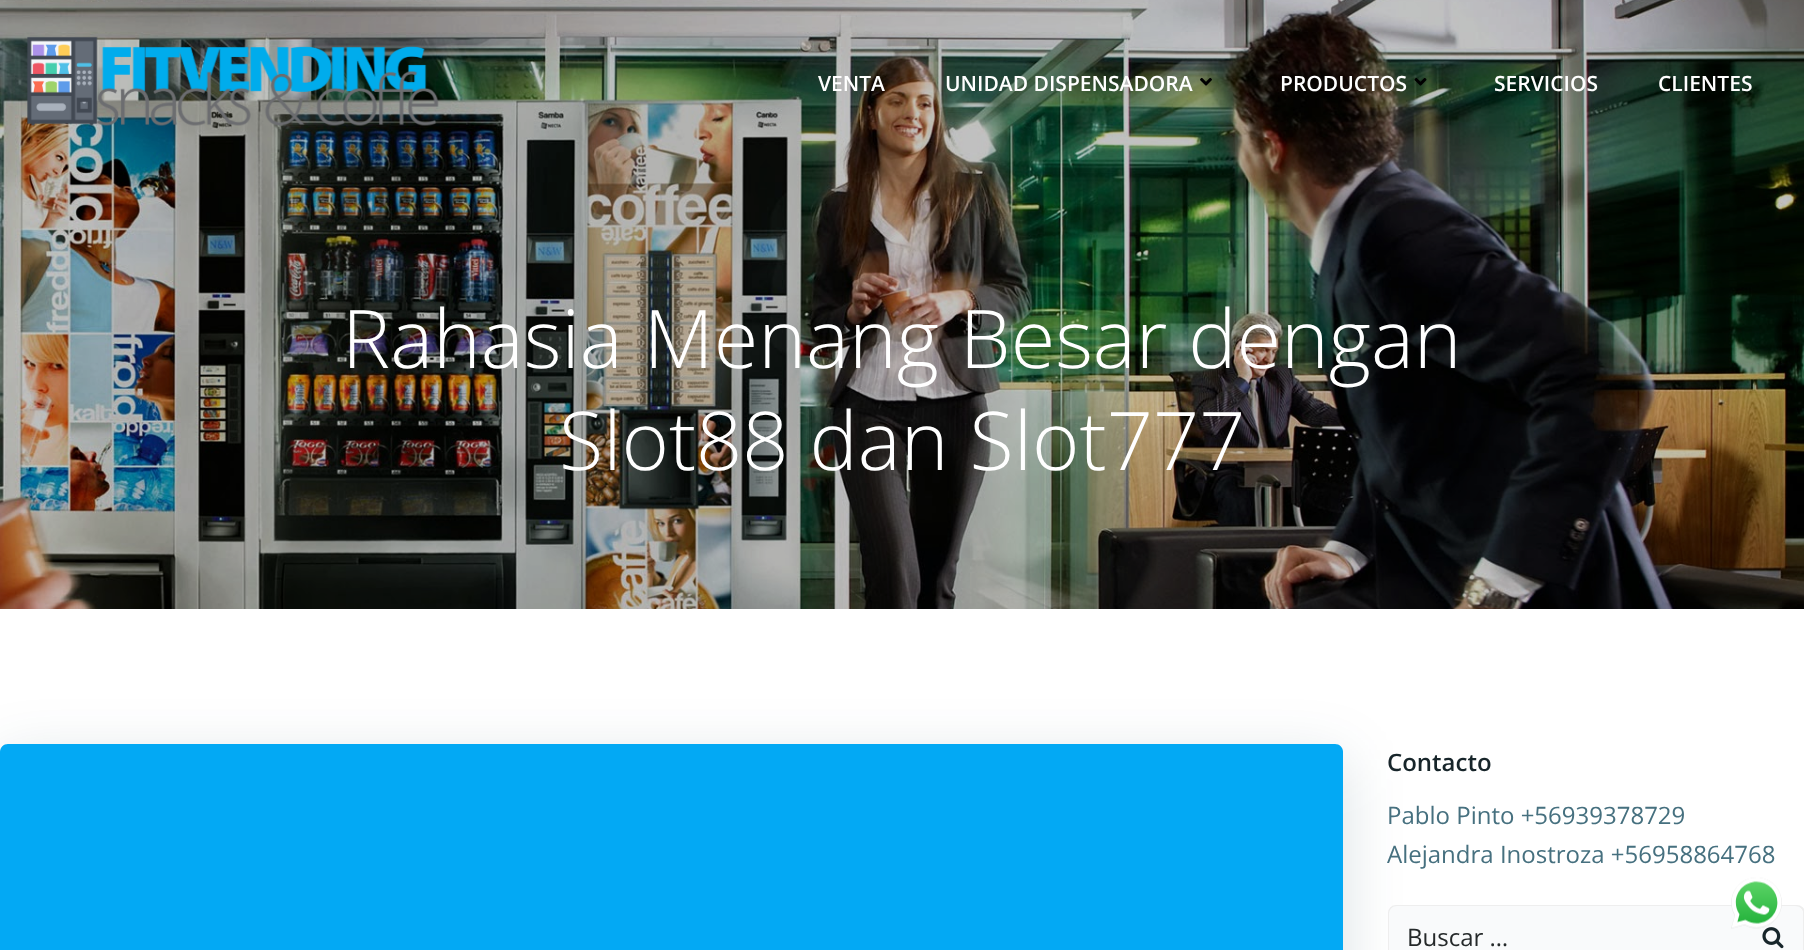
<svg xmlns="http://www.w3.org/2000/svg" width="1804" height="950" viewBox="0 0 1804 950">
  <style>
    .t1 { font: 600 21px Open Sans; fill: #fff; }
    .t2 { font: 300 81px Open Sans; fill: #fff; }
    .t3 { font: 600 24px Open Sans; fill: #17252a; }
    .t4 { font: 24px Open Sans; fill: #46707f; }
    .t5 { font: 24px Open Sans; fill: #25292a; }
  </style>
  <rect width="100%" height="100%" fill="#fff"/>
  <image x="0" y="0" width="1804" height="609" href="images/4.png"/>
  <image x="27" y="36" width="412" height="90" href="images/1.png"/>
  <text x="818" y="91" class="t1">VENTA</text>
  <text x="945" y="91" class="t1">UNIDAD DISPENSADORA</text>
  <image x="1200" y="77" width="12" height="9" href="images/2.png"/>
  <text x="1280" y="91" class="t1">PRODUCTOS</text>
  <image x="1414" y="78" width="13" height="8" href="images/3.png"/>
  <text x="1494" y="91" class="t1">SERVICIOS</text>
  <text x="1658" y="91" class="t1">CLIENTES</text>
  <text x="342" y="368" class="t2">Rahasia Menang Besar dengan</text>
  <text x="559" y="470" class="t2">Slot88 dan Slot777</text>
  <rect x="0" y="759" width="1343" height="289" rx="8" fill="#01334a26" filter="blur(30px)"/>
  <path d="M8 744H1335C1339.5 744 1343 747.5 1343 752V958H0V752C0 747.5 3.5 744 8 744Z" fill="#03a9f4"/>
  <text x="1387" y="771" class="t3">Contacto</text>
  <text x="1387" y="824" class="t4">Pablo Pinto +56939378729</text>
  <text x="1387" y="863" class="t4">Alejandra Inostroza +56958864768</text>
  <rect x="1389" y="906" width="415" height="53" rx="7" fill="none" stroke="#eee" stroke-width="2"/>
  <path d="M1397 906H1743V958H1397C1392.5 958 1389 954.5 1389 950V914C1389 909.5 1392.5 906 1397 906Z" fill="#f9fafb"/>
  <text x="1407" y="946" class="t5">Buscar …</text>
  <path d="M1743 906H1795C1799.5 906 1803 909.5 1803 914V950C1803 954.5 1799.5 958 1795 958H1743Z" fill="#f9fafb"/>
  <image x="1762" y="927" width="22" height="22" href="images/5.png"/>
  <image x="1731" y="877" width="51" height="52" href="images/6.png"/>
</svg>
